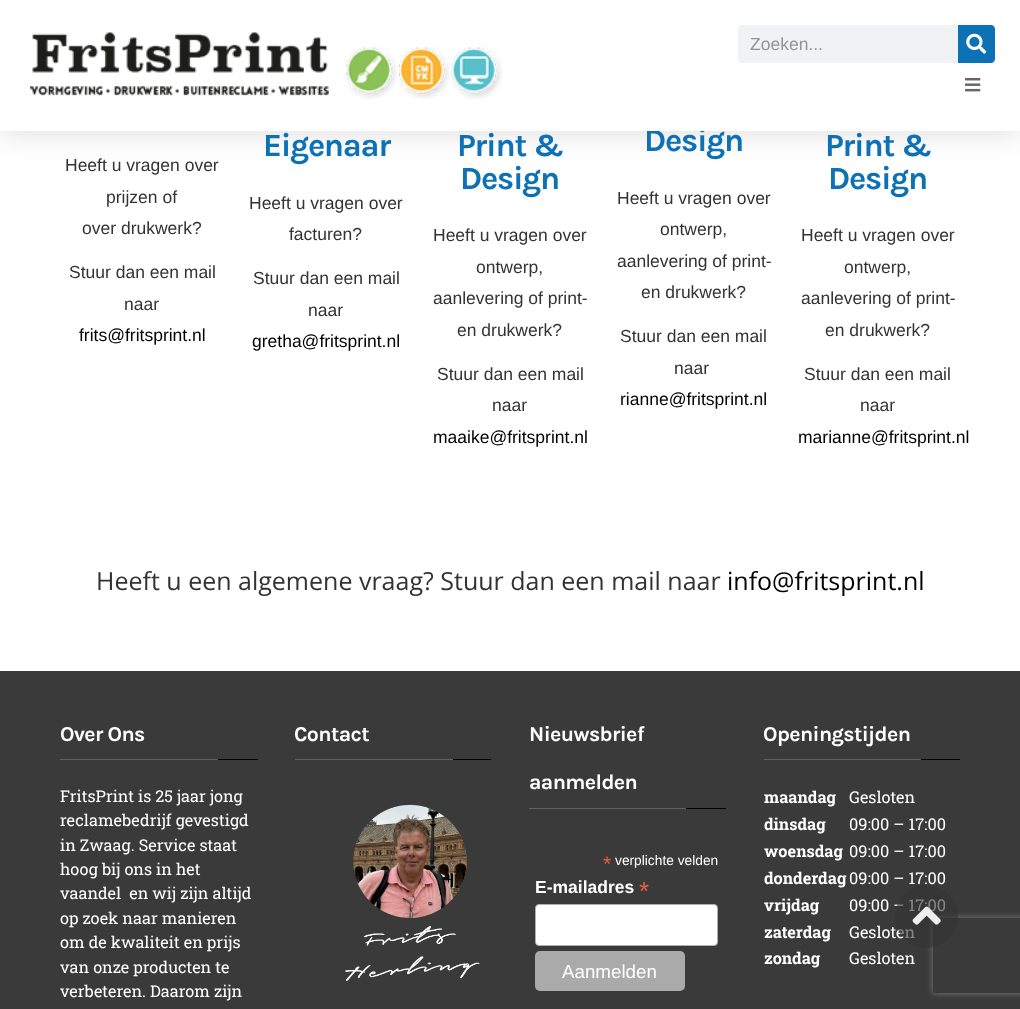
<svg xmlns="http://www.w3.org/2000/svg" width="1020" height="1009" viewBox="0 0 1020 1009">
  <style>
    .t1 { font: bold 32.5px Karla; letter-spacing: -1.25px; fill: #0d71b5; }
    .t2 { font: 17.5px Liberation Sans; fill: #939494; }
    .t3 { font: 17.5px Liberation Sans; fill: #333; }
    .t4 { font: 17.5px Liberation Sans; fill: #000; }
    .t5 { font: 25px Open Sans; fill: #333; }
    .t6 { font: 25px Open Sans; fill: #000; }
    .t7 { font: bold 21.25px Karla; letter-spacing: -0.6px; fill: #fff; }
    .t8 { font: 16.25px Roboto Slab; fill: #fff; }
    .t9 { font: 21px Liberation Sans; fill: #e85c41; }
    .t10 { font: 13.75px Liberation Sans; fill: #fff; }
    .t11 { font: bold 17.5px Liberation Sans; fill: #fff; }
    .t12 { font: 26px Liberation Sans; fill: #e85c41; }
    .t13 { font: 18.75px Liberation Sans; fill: #fff; }
    .t14 { font: bold 16.25px Roboto Slab; fill: #fff; }
  </style>
  <defs>
    <clipPath id="clip1"><path d="M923 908H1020V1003H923ZM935.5 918H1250.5C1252 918 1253 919 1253 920.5V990.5C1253 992 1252 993 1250.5 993H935.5C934 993 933 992 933 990.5V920.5C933 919 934 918 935.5 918Z" clip-rule="evenodd"/></clipPath>
  </defs>
  <rect width="100%" height="100%" fill="#fff"/>
  <rect x="0" y="0" width="1020" height="131" fill="#00000026" filter="blur(15px)"/>
  <text x="644" y="151" class="t1">Design</text>
  <rect x="0" y="0" width="1020" height="131" fill="#fff"/>
  <image x="30" y="32" width="473" height="67" href="images/1.png"/>
  <rect x="738" y="25" width="257" height="38" rx="4" fill="#f1f2f3"/>
  <text x="750" y="50" class="t2">Zoeken...</text>
  <path d="M958 25H991C993 25 995 27 995 29V59C995 61 993 63 991 63H958Z" fill="#0d71b5"/>
  <image x="966" y="33" width="21" height="21" href="images/2.png"/>
  <image x="965" y="78" width="16" height="14" href="images/3.png"/>
  <text x="65" y="171" class="t3">Heeft u vragen over</text>
  <text x="106" y="203" class="t3">prijzen of</text>
  <text x="82" y="234" class="t3">over drukwerk?</text>
  <text x="69" y="278" class="t3">Stuur dan een mail</text>
  <text x="124" y="310" class="t3">naar</text>
  <text x="79" y="341" class="t4">frits@fritsprint.nl</text>
  <text x="263" y="156" class="t1">Eigenaar</text>
  <text x="249" y="209" class="t3">Heeft u vragen over</text>
  <text x="289" y="240" class="t3">facturen?</text>
  <text x="253" y="284" class="t3">Stuur dan een mail</text>
  <text x="308" y="316" class="t3">naar</text>
  <text x="252" y="347" class="t4">gretha@fritsprint.nl</text>
  <text x="457" y="156" class="t1">Print &amp;</text>
  <text x="460" y="189" class="t1">Design</text>
  <text x="433" y="241" class="t3">Heeft u vragen over</text>
  <text x="476" y="273" class="t3">ontwerp,</text>
  <text x="433" y="304" class="t3">aanlevering of print-</text>
  <text x="457" y="336" class="t3">en drukwerk?</text>
  <text x="437" y="380" class="t3">Stuur dan een mail</text>
  <text x="492" y="411" class="t3">naar</text>
  <text x="433" y="443" class="t4">maaike@fritsprint.nl</text>
  <text x="617" y="204" class="t3">Heeft u vragen over</text>
  <text x="660" y="235" class="t3">ontwerp,</text>
  <text x="617" y="267" class="t3">aanlevering of print-</text>
  <text x="641" y="298" class="t3">en drukwerk?</text>
  <text x="620" y="342" class="t3">Stuur dan een mail</text>
  <text x="674" y="374" class="t3">naar</text>
  <text x="620" y="405" class="t4">rianne@fritsprint.nl</text>
  <text x="825" y="156" class="t1">Print &amp;</text>
  <text x="828" y="189" class="t1">Design</text>
  <text x="801" y="241" class="t3">Heeft u vragen over</text>
  <text x="844" y="273" class="t3">ontwerp,</text>
  <text x="801" y="304" class="t3">aanlevering of print-</text>
  <text x="825" y="336" class="t3">en drukwerk?</text>
  <text x="804" y="380" class="t3">Stuur dan een mail</text>
  <text x="860" y="411" class="t3">naar</text>
  <text x="798" y="443" class="t4">marianne@fritsprint.nl</text>
  <text x="96" y="590" class="t5">Heeft u een algemene vraag? Stuur dan een mail naar</text>
  <text x="727" y="590" class="t6">info@fritsprint.nl</text>
  <rect x="0" y="671" width="1020" height="338" fill="#3a3a3a"/>
  <rect x="60" y="759" width="158" height="1" fill="#616161"/>
  <text x="60" y="741" class="t7">Over Ons</text>
  <rect x="218" y="759" width="40" height="1" fill="#000"/>
  <text x="60" y="802" class="t8">FritsPrint is 25 jaar jong</text>
  <text x="60" y="826" class="t8">reclamebedrijf gevestigd</text>
  <text x="60" y="851" class="t8">in Zwaag. Service staat</text>
  <text x="60" y="875" class="t8">hoog bij ons in het</text>
  <text x="60" y="899" class="t8" xml:space="preserve">vaandel  en wij zijn altijd</text>
  <text x="60" y="924" class="t8">op zoek naar manieren</text>
  <text x="60" y="948" class="t8">om de kwaliteit en prijs</text>
  <text x="60" y="973" class="t8">van onze producten te</text>
  <text x="60" y="997" class="t8">verbeteren. Daarom zijn</text>
  <rect x="295" y="759" width="158" height="1" fill="#616161"/>
  <text x="294" y="741" class="t7">Contact</text>
  <rect x="453" y="759" width="38" height="1" fill="#000"/>
  <image x="345" y="804" width="135" height="178" href="images/4.png"/>
  <rect x="529" y="808" width="157" height="1" fill="#616161"/>
  <text x="529" y="741" class="t7">Nieuwsbrief</text>
  <text x="529" y="789" class="t7">aanmelden</text>
  <rect x="686" y="808" width="40" height="1" fill="#000"/>
  <text x="603" y="871" class="t9">*</text>
  <text x="615" y="865" class="t10">verplichte velden</text>
  <text x="535" y="893" class="t11">E-mailadres</text>
  <text x="639" y="900" class="t12">*</text>
  <rect x="535.5" y="904.5" width="182" height="41" rx="3.5" fill="#fff" stroke="#abb0b2"/>
  <rect x="535" y="951" width="150" height="40" rx="5" fill="#aaa"/>
  <text x="562" y="978" class="t13">Aanmelden</text>
  <rect x="764" y="759" width="157" height="1" fill="#616161"/>
  <text x="763" y="741" class="t7">Openingstijden</text>
  <rect x="921" y="759" width="39" height="1" fill="#000"/>
  <text x="764" y="803" class="t14">maandag</text>
  <text x="849" y="803" class="t8">Gesloten</text>
  <text x="764" y="830" class="t14">dinsdag</text>
  <text x="849" y="830" class="t8">09:00 – 17:00</text>
  <text x="764" y="857" class="t14">woensdag</text>
  <text x="849" y="857" class="t8">09:00 – 17:00</text>
  <text x="764" y="884" class="t14">donderdag</text>
  <text x="849" y="884" class="t8">09:00 – 17:00</text>
  <text x="764" y="911" class="t14">vrijdag</text>
  <text x="849" y="911" class="t8">09:00 – 17:00</text>
  <text x="764" y="938" class="t14">zaterdag</text>
  <text x="849" y="938" class="t8">Gesloten</text>
  <text x="764" y="964" class="t14">zondag</text>
  <text x="849" y="964" class="t8">Gesloten</text>
  <g clip-path="url(#clip1)">
    <rect x="933" y="918" width="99" height="75" rx="2.5" fill="#808080" filter="blur(3px)"/>
  </g>
  <circle cx="926.5" cy="916.5" r="31.5" fill="#33333399"/>
  <image x="912" y="906" width="29" height="19" href="images/5.png"/>
</svg>
